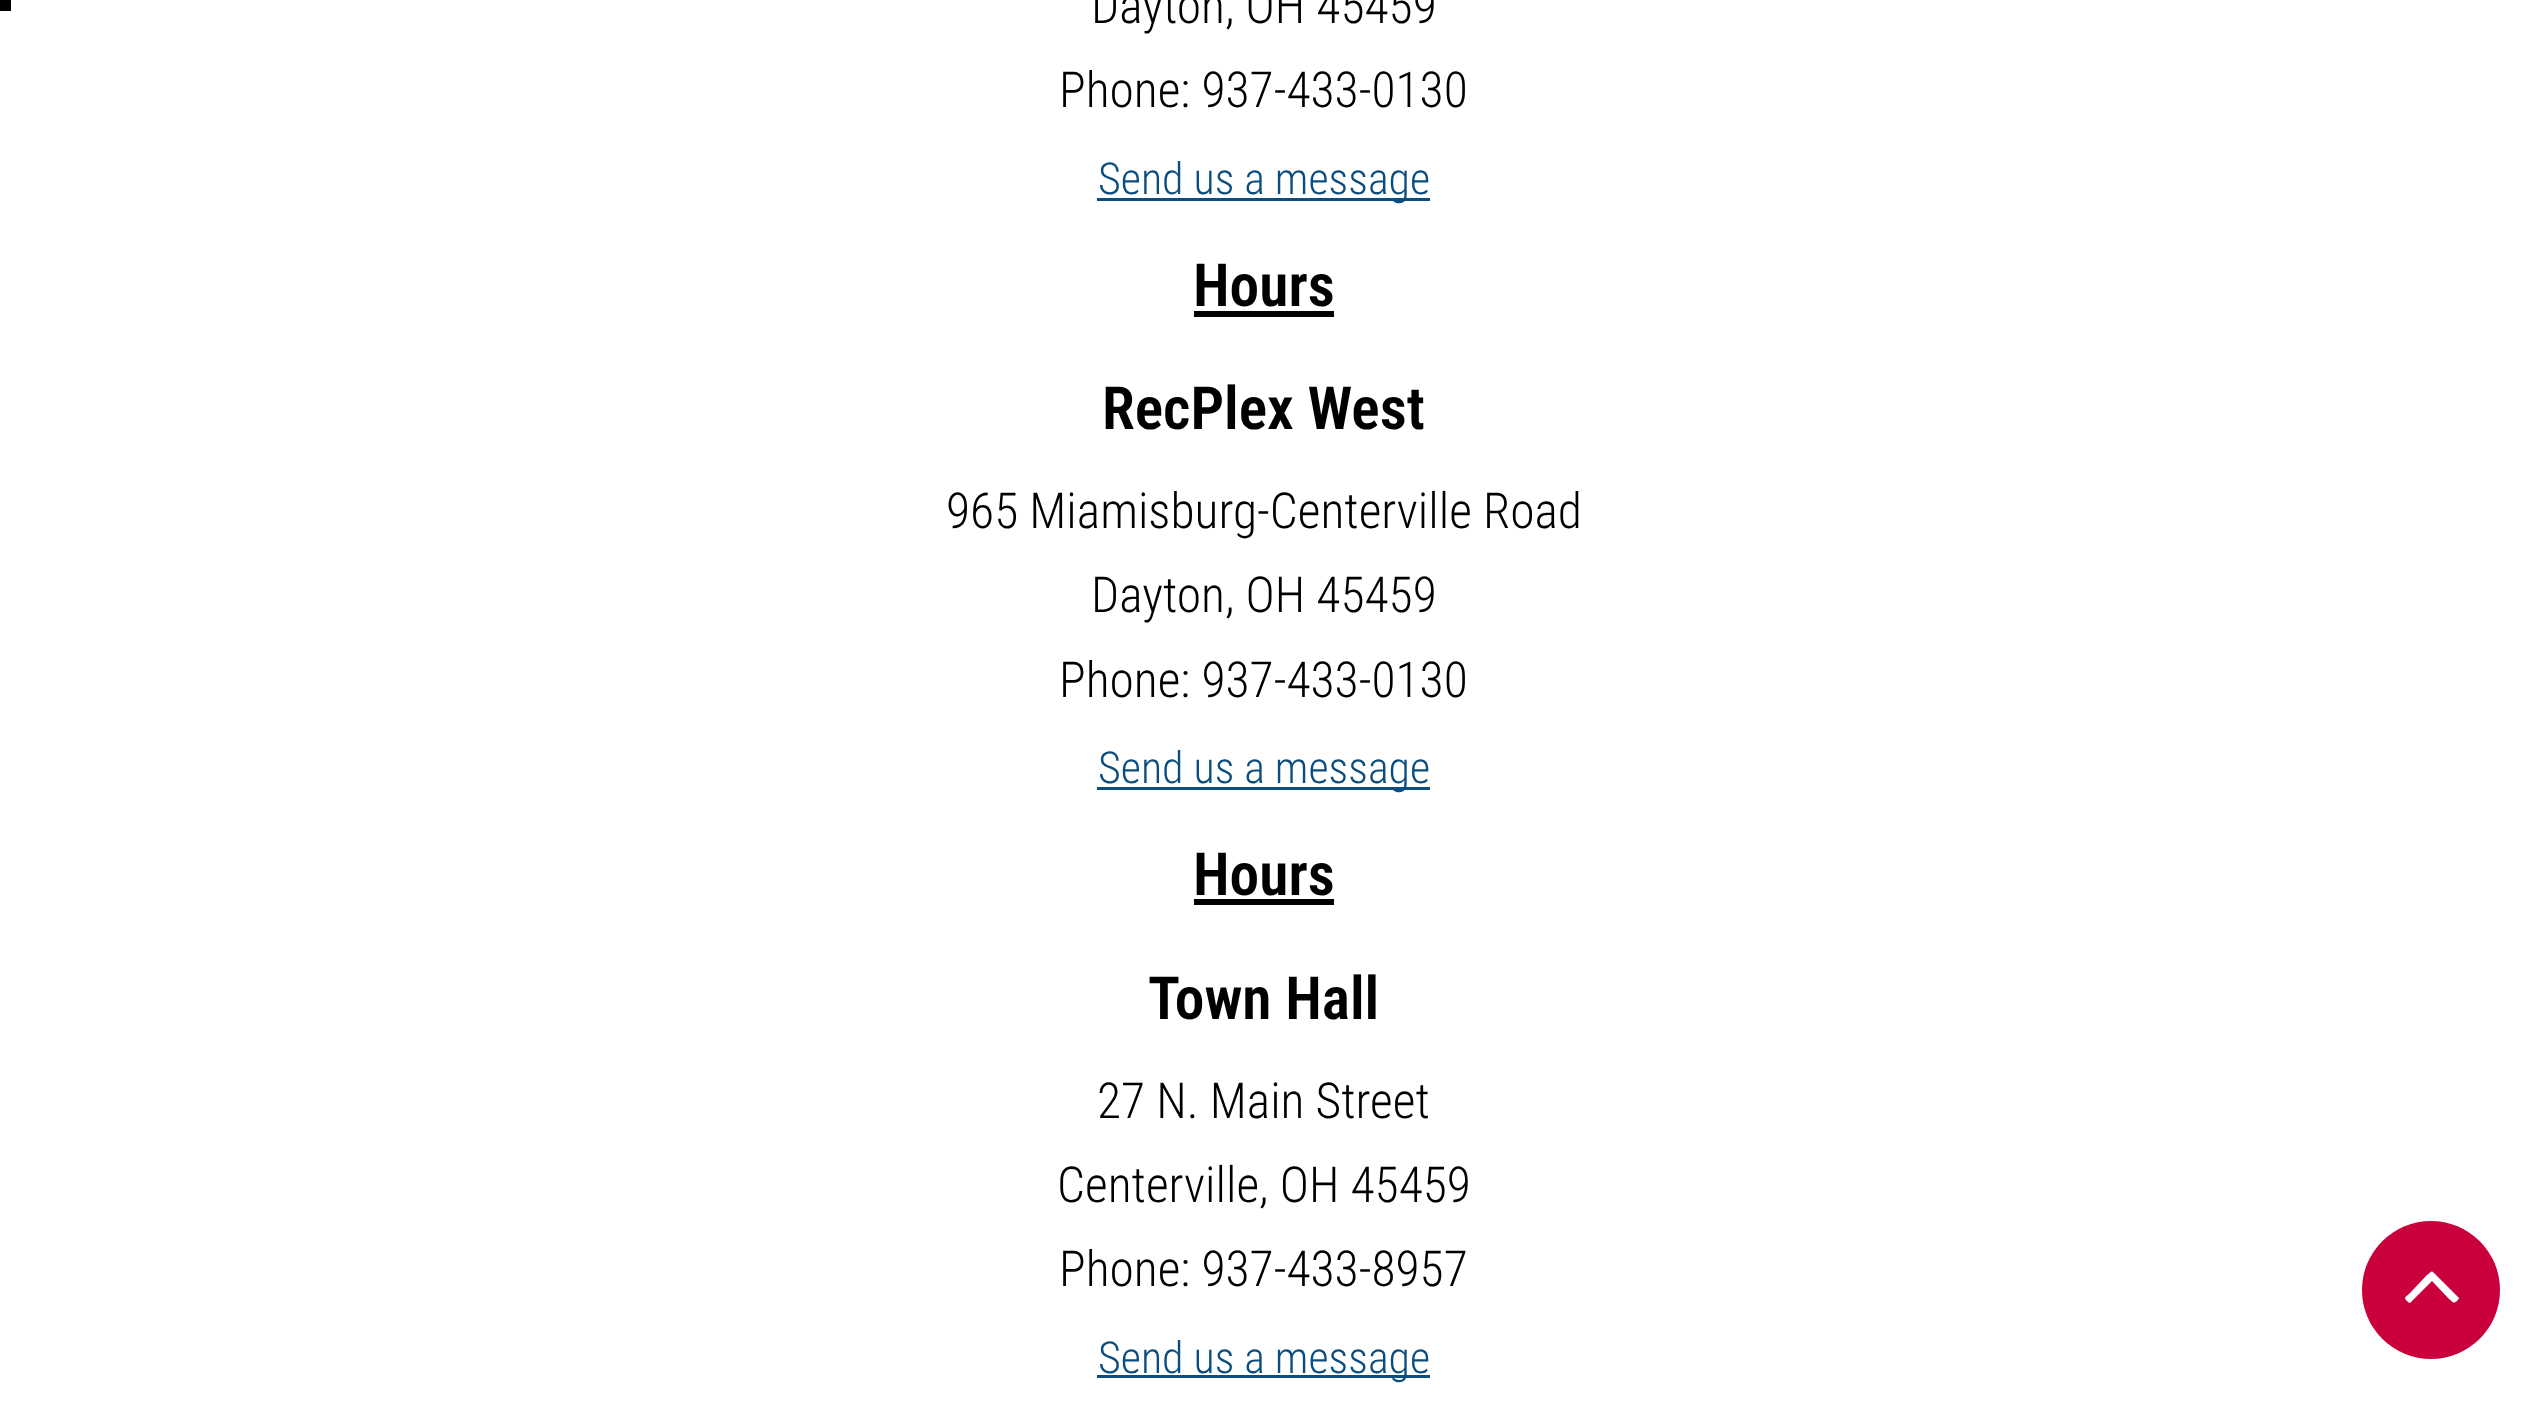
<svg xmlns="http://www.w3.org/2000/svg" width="2526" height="1412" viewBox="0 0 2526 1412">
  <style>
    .t1 { font: 300 49.5px Roboto Condensed; fill: #000; }
    .t2 { font: 300 44px Roboto Condensed; fill: #0b4d7e; }
    .t3 { font: 600 59.5px Roboto Condensed; fill: #000; }
  </style>
  <rect width="100%" height="100%" fill="#fff"/>
  <rect x="0" y="0" width="11" height="11" fill="#000"/>
  <text x="1091" y="23" class="t1">Dayton, OH 45459</text>
  <text x="1059" y="107" class="t1">Phone: 937-433-0130</text>
  <rect x="1097" y="198" width="333" height="3" fill="#0b4d7e"/>
  <text x="1098" y="194" class="t2">Send us a message</text>
  <text x="1193" y="306" class="t3">Hours</text>
  <rect x="1194" y="311" width="140" height="6" fill="#000"/>
  <text x="1102" y="429" class="t3">RecPlex West</text>
  <text x="946" y="528" class="t1">965 Miamisburg-Centerville Road</text>
  <text x="1091" y="612" class="t1">Dayton, OH 45459</text>
  <text x="1059" y="697" class="t1">Phone: 937-433-0130</text>
  <rect x="1097" y="787" width="333" height="3" fill="#0b4d7e"/>
  <text x="1098" y="783" class="t2">Send us a message</text>
  <text x="1193" y="895" class="t3">Hours</text>
  <rect x="1194" y="899" width="140" height="6" fill="#000"/>
  <text x="1148" y="1019" class="t3">Town Hall</text>
  <text x="1097" y="1118" class="t1">27 N. Main Street</text>
  <text x="1057" y="1202" class="t1">Centerville, OH 45459</text>
  <text x="1059" y="1286" class="t1">Phone: 937-433-8957</text>
  <rect x="1097" y="1375" width="333" height="3" fill="#0b4d7e"/>
  <text x="1098" y="1373" class="t2">Send us a message</text>
  <circle cx="2431" cy="1290" r="69" fill="#ca003d"/>
  <path d="M2458 1297C2460 1298 2458 1300 2457 1301C2453 1304 2453 1302 2449 1299L2432 1281L2410 1303C2409 1303 2408 1302 2407 1301C2403 1297 2406 1297 2410 1293L2426 1276C2433 1270 2431 1270 2437 1276Z" fill="#fff"/>
</svg>
